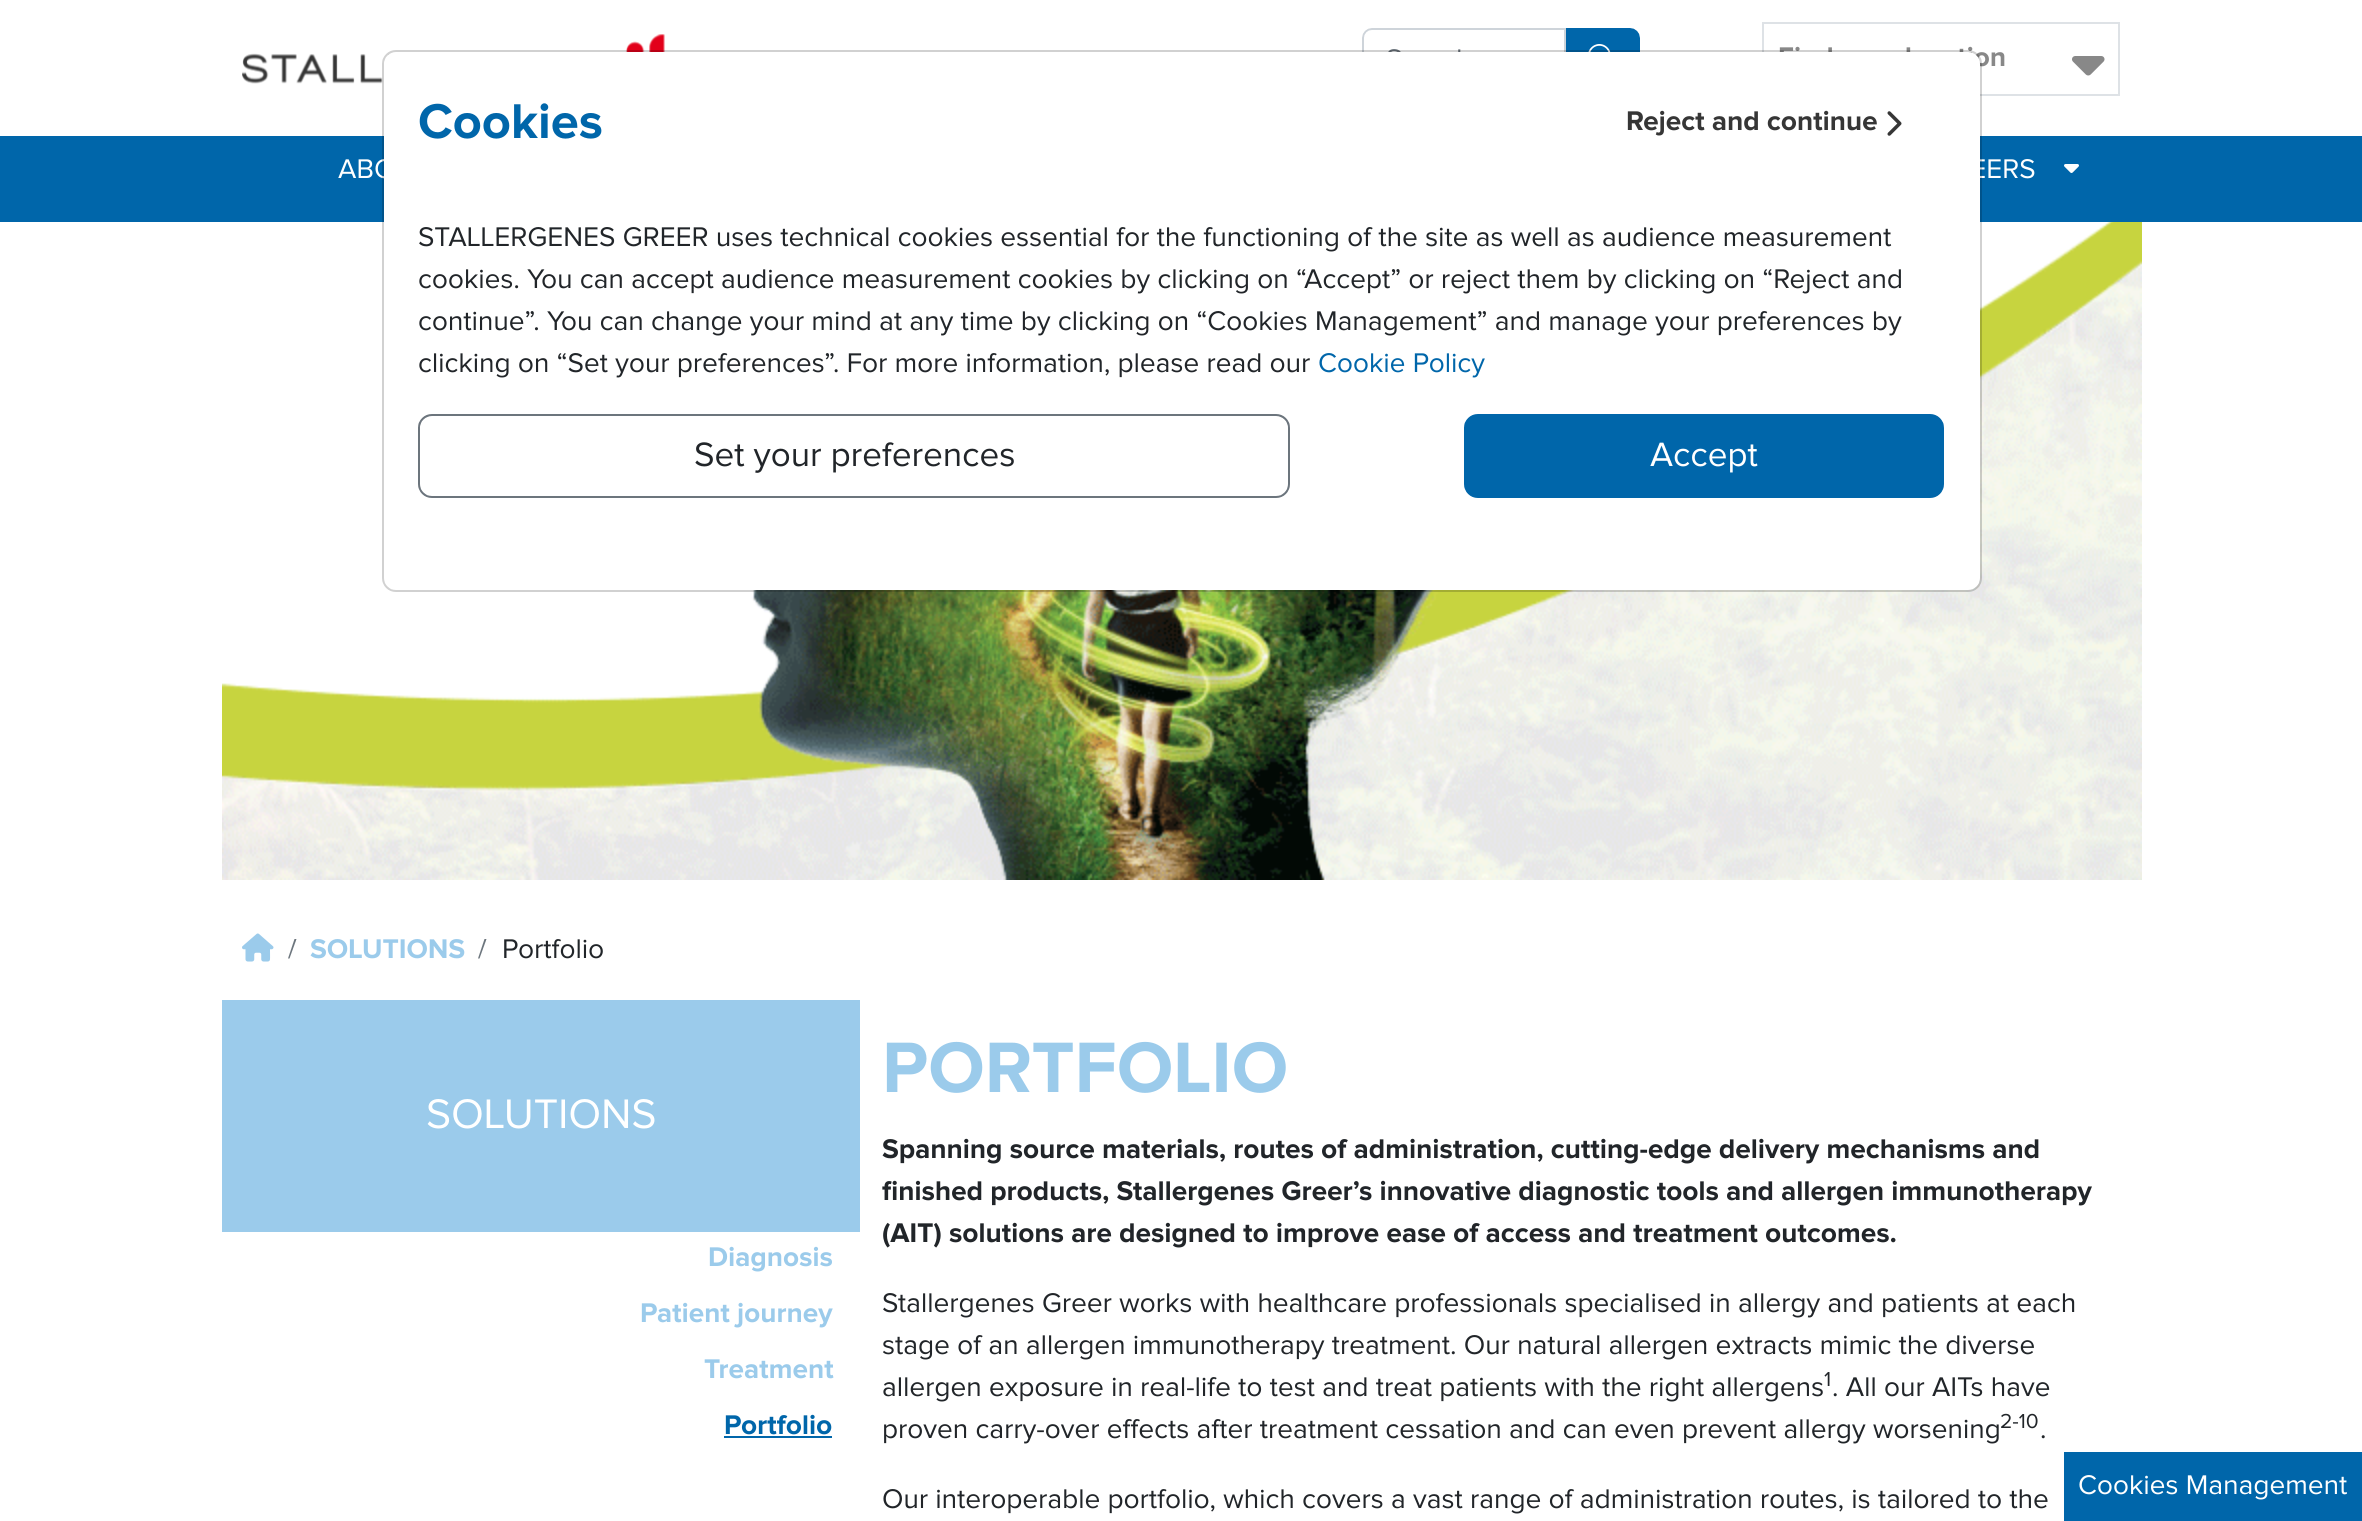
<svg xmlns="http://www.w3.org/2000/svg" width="2362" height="1521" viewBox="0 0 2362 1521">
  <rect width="100%" height="100%" fill="#fff"/>
  <image x="242" y="34" width="423" height="50" href="images/1.png"/>
  <path d="M1372 29H1565V95H1372C1367 95 1363 91 1363 86V38C1363 33 1367 29 1372 29Z" fill="none" stroke="#ced4da" stroke-width="2"/>
  <image x="1388" y="49" width="73" height="3" href="images/2.png"/>
  <path d="M1567 29H1630C1635 29 1639 33 1639 38V86C1639 91 1635 95 1630 95H1567Z" fill="#06a" stroke="#06a" stroke-width="2"/>
  <image x="1588" y="44" width="23" height="8" href="images/3.png"/>
  <rect x="1763" y="23" width="356" height="72" fill="none" stroke="#dee2e6" stroke-width="2"/>
  <image x="1779" y="46" width="226" height="21" href="images/4.png"/>
  <image x="2072" y="56" width="33" height="20" href="images/5.png"/>
  <rect x="0" y="136" width="2362" height="86" fill="#06a"/>
  <image x="338" y="159" width="46" height="20" href="images/6.png"/>
  <image x="1980" y="159" width="55" height="20" href="images/7.png"/>
  <image x="2064" y="164" width="15" height="9" href="images/8.png"/>
  <image x="222" y="222" width="1920" height="658" href="images/19.png"/>
  <rect x="384" y="52" width="1596" height="538" rx="12" fill="#fff"/>
  <rect x="383" y="51" width="1598" height="540" rx="13" fill="none" stroke="#0000002e" stroke-width="2"/>
  <image x="419" y="103" width="183" height="36" href="images/9.png"/>
  <image x="1627" y="110" width="250" height="26" href="images/10.png"/>
  <image x="1887" y="111" width="15" height="25" href="images/11.png"/>
  <image x="419" y="227" width="1473" height="25" href="images/12.png"/>
  <image x="419" y="269" width="1482" height="25" href="images/13.png"/>
  <image x="419" y="311" width="1483" height="25" href="images/14.png"/>
  <image x="419" y="353" width="891" height="25" href="images/15.png"/>
  <image x="1319" y="353" width="166" height="25" href="images/16.png"/>
  <rect x="419" y="415" width="870" height="82" rx="13" fill="none" stroke="#6c757d" stroke-width="2"/>
  <image x="695" y="442" width="319" height="31" href="images/17.png"/>
  <rect x="1465" y="415" width="478" height="82" rx="13" fill="#06a" stroke="#06a" stroke-width="2"/>
  <image x="1650" y="442" width="108" height="31" href="images/18.png"/>
  <image x="242" y="933" width="32" height="29" href="images/20.png"/>
  <path d="M289.5 958.5L296.5 939H294.5L288 958.5Z" fill="#6c757d"/>
  <image x="310" y="939" width="155" height="20" href="images/21.png"/>
  <path d="M479.5 958.5L486.5 939H484.5L478 958.5Z" fill="#6c757d"/>
  <image x="504" y="939" width="99" height="20" href="images/22.png"/>
  <rect x="222" y="1000" width="638" height="232" fill="#9bcbeb"/>
  <image x="427" y="1099" width="228" height="30" href="images/23.png"/>
  <image x="709" y="1246" width="123" height="26" href="images/24.png"/>
  <image x="641" y="1302" width="192" height="26" href="images/25.png"/>
  <image x="704" y="1359" width="130" height="20" href="images/26.png"/>
  <image x="725" y="1414" width="107" height="21" href="images/27.png"/>
  <rect x="724" y="1436" width="108" height="2" fill="#06a"/>
  <image x="886" y="1041" width="400" height="52" href="images/28.png"/>
  <image x="882" y="1138" width="1157" height="26" href="images/29.png"/>
  <image x="882" y="1180" width="1210" height="26" href="images/30.png"/>
  <image x="883" y="1222" width="1013" height="26" href="images/31.png"/>
  <image x="883" y="1293" width="1192" height="25" href="images/32.png"/>
  <image x="883" y="1335" width="1151" height="25" href="images/33.png"/>
  <image x="883" y="1377" width="940" height="25" href="images/34.png"/>
  <image x="1824" y="1372" width="6" height="14" href="images/35.png"/>
  <image x="1833" y="1377" width="217" height="20" href="images/36.png"/>
  <image x="884" y="1419" width="1115" height="25" href="images/37.png"/>
  <image x="2001" y="1413" width="37" height="16" href="images/38.png"/>
  <image x="2041" y="1435" width="4" height="4" href="images/39.png"/>
  <image x="883" y="1489" width="1165" height="25" href="images/40.png"/>
  <rect x="2064" y="1452" width="298" height="69" fill="#06a"/>
  <image x="2079" y="1475" width="268" height="25" href="images/41.png"/>
</svg>
